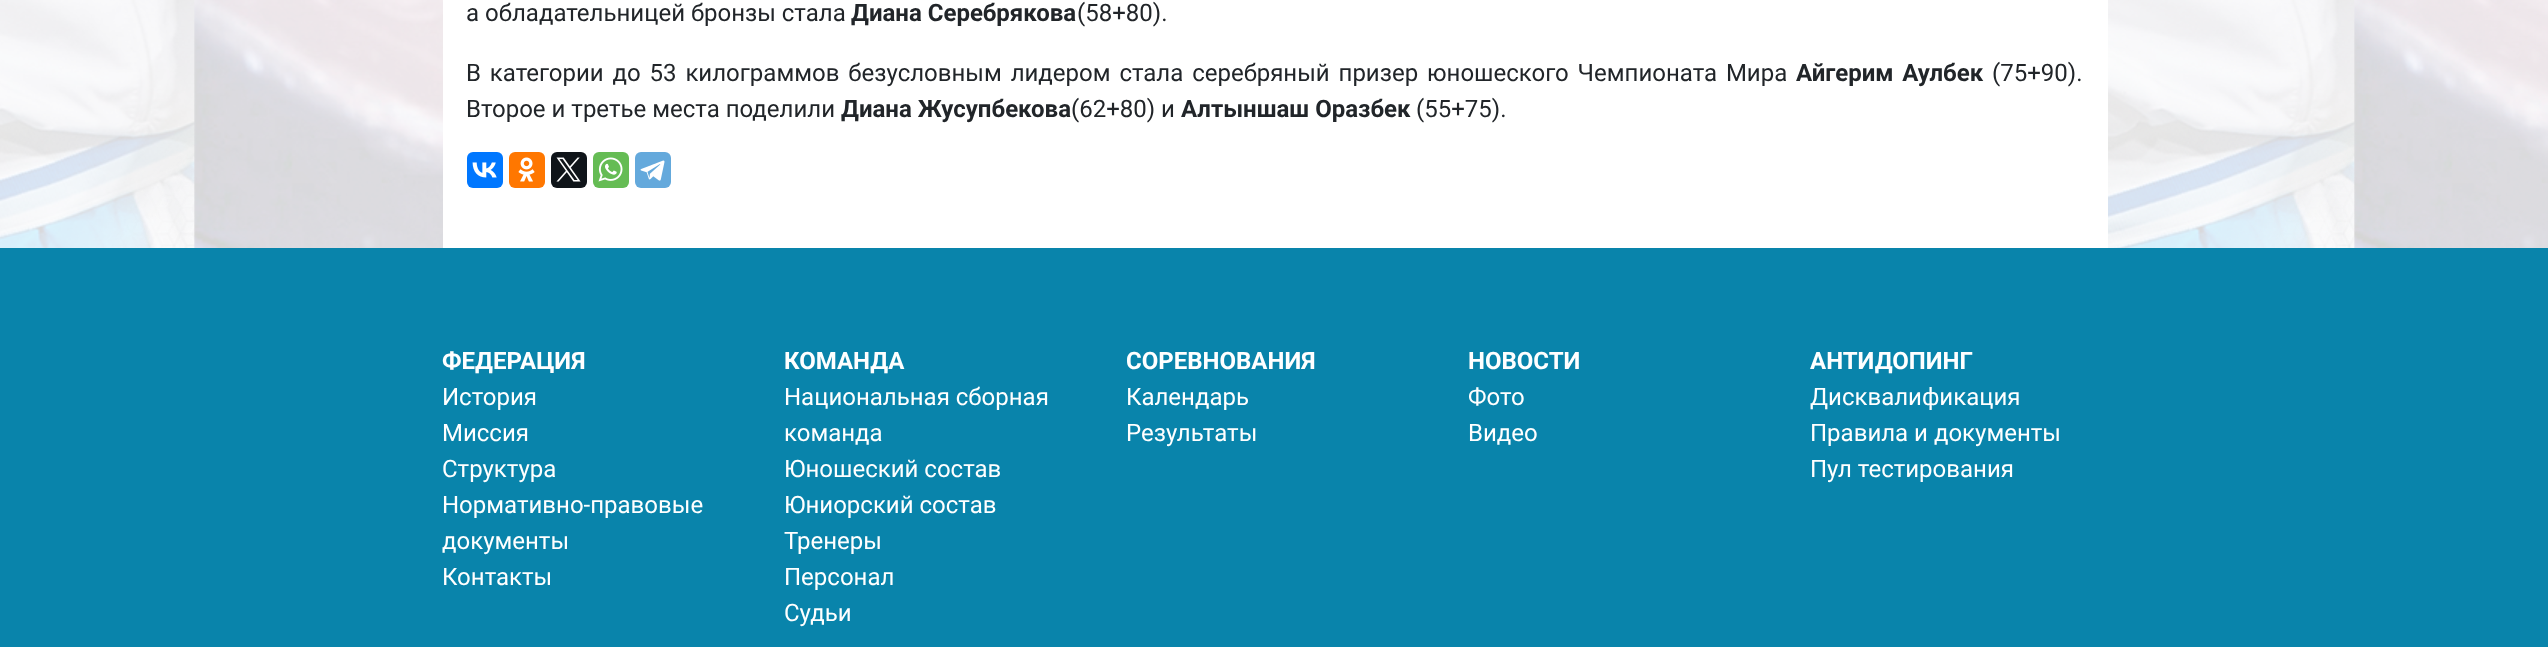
<svg xmlns="http://www.w3.org/2000/svg" width="2548" height="647" viewBox="0 0 2548 647">
  <style>
    .t1 { font: 24px Roboto; fill: #212529; }
    .t2 { font: bold 24px Roboto; fill: #212529; }
    .t3 { font: bold 24px Roboto; fill: #fff; }
    .t4 { font: 24px Roboto; fill: #fff; }
  </style>
  <rect width="100%" height="100%" fill="#fff"/>
  <image x="72" y="0" width="2284" height="248" href="images/1.png"/>
  <image x="0" y="0" width="2548" height="248" href="images/2.png"/>
  <rect x="443" y="0" width="1665" height="248" fill="#fff"/>
  <text x="466" y="21" class="t1">а обладательницей бронзы стала</text>
  <text x="851" y="21" class="t2">Диана Серебрякова</text>
  <text x="1077" y="21" class="t1">(58+80).</text>
  <text x="466" y="81" word-spacing="2.9" class="t1">В категории до 53 килограммов безусловным лидером стала серебряный призер юношеского Чемпионата Мира</text>
  <text x="1796" y="81" word-spacing="2.9" class="t2">Айгерим Аулбек</text>
  <text x="1992" y="81" class="t1">(75+90).</text>
  <text x="466" y="117" class="t1">Второе и третье места поделили</text>
  <text x="841" y="117" class="t2">Диана Жусупбекова</text>
  <text x="1071" y="117" class="t1">(62+80) и</text>
  <text x="1181" y="117" class="t2">Алтыншаш Оразбек</text>
  <text x="1416" y="117" class="t1">(55+75).</text>
  <rect x="467" y="152" width="36" height="36" rx="6" fill="#07f"/>
  <image x="472" y="162" width="25" height="16" href="images/3.png"/>
  <rect x="509" y="152" width="36" height="36" rx="6" fill="#f70"/>
  <image x="518" y="157" width="17" height="25" href="images/4.png"/>
  <rect x="551" y="152" width="36" height="36" rx="6" fill="#0f1419"/>
  <image x="556" y="157" width="25" height="25" href="images/5.png"/>
  <rect x="593" y="152" width="36" height="36" rx="6" fill="#65bc54"/>
  <image x="598" y="157" width="25" height="25" href="images/6.png"/>
  <rect x="635" y="152" width="36" height="36" rx="6" fill="#64a9dc"/>
  <image x="640" y="160" width="25" height="21" href="images/7.png"/>
  <rect x="0" y="248" width="2548" height="399" fill="#0984ab"/>
  <text x="442" y="369" class="t3">ФЕДЕРАЦИЯ</text>
  <text x="442" y="405" class="t4">История</text>
  <text x="442" y="441" class="t4">Миссия</text>
  <text x="442" y="477" class="t4">Структура</text>
  <text x="442" y="513" class="t4">Нормативно-правовые</text>
  <text x="442" y="549" class="t4">документы</text>
  <text x="442" y="585" class="t4">Контакты</text>
  <text x="784" y="369" class="t3">КОМАНДА</text>
  <text x="784" y="405" class="t4">Национальная сборная</text>
  <text x="784" y="441" class="t4">команда</text>
  <text x="784" y="477" class="t4">Юношеский состав</text>
  <text x="784" y="513" class="t4">Юниорский состав</text>
  <text x="784" y="549" class="t4">Тренеры</text>
  <text x="784" y="585" class="t4">Персонал</text>
  <text x="784" y="621" class="t4">Судьи</text>
  <text x="1126" y="369" class="t3">СОРЕВНОВАНИЯ</text>
  <text x="1126" y="405" class="t4">Календарь</text>
  <text x="1126" y="441" class="t4">Результаты</text>
  <text x="1468" y="369" class="t3">НОВОСТИ</text>
  <text x="1468" y="405" class="t4">Фото</text>
  <text x="1468" y="441" class="t4">Видео</text>
  <text x="1810" y="369" class="t3">АНТИДОПИНГ</text>
  <text x="1810" y="405" class="t4">Дисквалификация</text>
  <text x="1810" y="441" class="t4">Правила и документы</text>
  <text x="1810" y="477" class="t4">Пул тестирования</text>
</svg>
